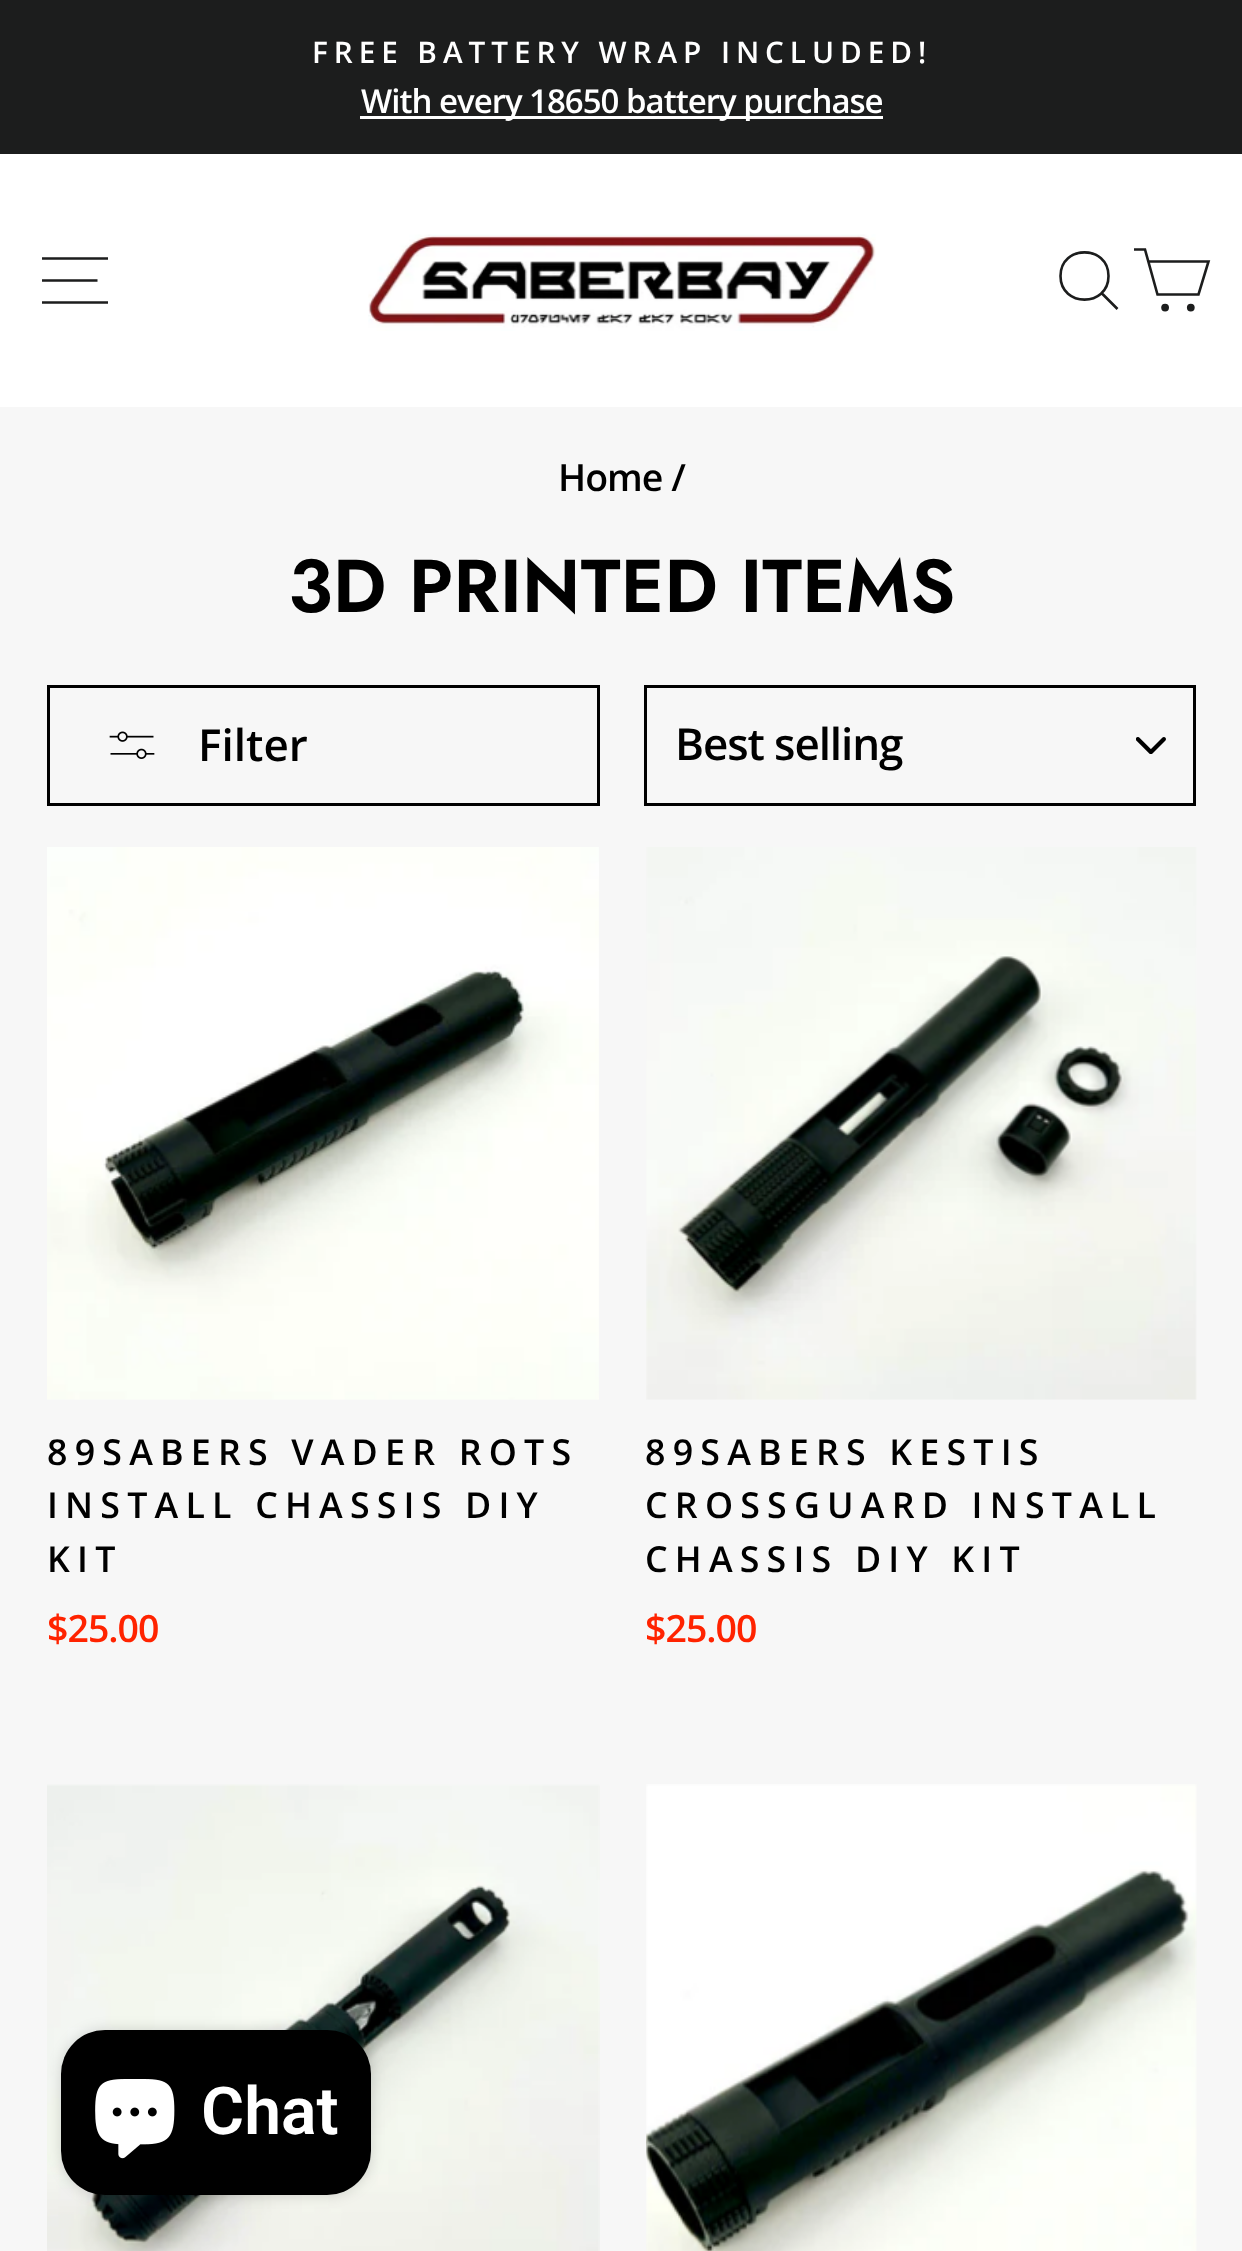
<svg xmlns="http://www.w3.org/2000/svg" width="1242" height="2251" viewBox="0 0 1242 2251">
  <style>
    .t1 { font: 600 29.7px Open Sans; letter-spacing: 5.95px; fill: #fff; }
    .t2 { font: 600 33px Open Sans; letter-spacing: -1px; fill: #fff; }
    .t3 { font: 600 37.5px Open Sans; letter-spacing: -1px; fill: #000; }
    .t4 { font: 600 74.75px Jost; fill: #000; }
    .t5 { font: 600 44px Open Sans; fill: #000; }
    .t6 { font: 600 44px Open Sans; letter-spacing: -1.1px; fill: #000; }
    .t7 { font: 600 35.75px Open Sans; letter-spacing: 7.2px; fill: #000; }
    .t8 { font: 600 37.5px Open Sans; letter-spacing: -1px; fill: #ff2300; }
    .t9 { font: 600 66px Roboto; fill: #fff; }
  </style>
  <rect width="100%" height="100%" fill="#f7f7f7"/>
  <rect x="0" y="0" width="1242" height="154" fill="#1c1d1d"/>
  <text x="312" y="63" class="t1">FREE BATTERY WRAP INCLUDED!</text>
  <rect x="360" y="116" width="523" height="3" fill="#fff"/>
  <text x="361" y="113" class="t2">With every 18650 battery purchase</text>
  <rect x="0" y="154" width="1242" height="253" fill="#fff"/>
  <path d="M42 258.5H108M42 280.5H97.5M42 302.5H108" fill="none" stroke="#1c1d1d" stroke-width="2.6"/>
  <image x="368" y="234" width="508" height="97" href="images/1.png"/>
  <path d="M1108.5 276C1108.5 307.5 1060.5 307.5 1060.5 276C1060.5 244.5 1108.5 244.5 1108.5 276ZM1117.5 309L1102 293.5" fill="none" stroke="#1c1d1d" stroke-width="2.6"/>
  <path d="M1148.5 261.5H1208.5L1198.5 294.5H1157.5L1145 249.5H1134" fill="none" stroke="#1c1d1d" stroke-width="2.6"/>
  <circle cx="1165.1" cy="307.6" r="2.6" fill="#1c1d1d" stroke="#1c1d1d" stroke-width="2.6"/>
  <circle cx="1190.8" cy="307.6" r="2.6" fill="#1c1d1d" stroke="#1c1d1d" stroke-width="2.6"/>
  <text x="558" y="491" class="t3">Home /</text>
  <text x="288" y="612" class="t4">3D PRINTED ITEMS</text>
  <rect x="48.5" y="686.5" width="550" height="118" fill="none" stroke="#000" stroke-width="3"/>
  <image x="109" y="731" width="46" height="28" href="images/2.png"/>
  <text x="198" y="761" class="t5">Filter</text>
  <image x="1136" y="737" width="30" height="17" href="images/3.png"/>
  <rect x="645.5" y="686.5" width="549" height="118" fill="none" stroke="#000" stroke-width="3"/>
  <text x="675" y="760" class="t6">Best selling</text>
  <image x="47" y="847" width="552" height="553" href="images/4.png"/>
  <text x="47" y="1465" class="t7">89SABERS VADER ROTS</text>
  <text x="47" y="1518" class="t7">INSTALL CHASSIS DIY</text>
  <text x="47" y="1572" class="t7">KIT</text>
  <text x="47" y="1642" class="t8">$25.00</text>
  <image x="646" y="847" width="551" height="553" href="images/5.png"/>
  <text x="645" y="1465" class="t7">89SABERS KESTIS</text>
  <text x="645" y="1518" class="t7">CROSSGUARD INSTALL</text>
  <text x="645" y="1572" class="t7">CHASSIS DIY KIT</text>
  <text x="645" y="1642" class="t8">$25.00</text>
  <image x="47" y="1784" width="553" height="467" href="images/6.png"/>
  <image x="646" y="1784" width="551" height="467" href="images/7.png"/>
  <rect x="61" y="2030" width="310" height="165" rx="44" fill="#00000026" filter="blur(7px)"/>
  <rect x="61" y="2030" width="310" height="165" rx="44" fill="#000"/>
  <image x="95" y="2079" width="80" height="80" href="images/8.png"/>
  <text x="201" y="2134" class="t9">Chat</text>
</svg>
